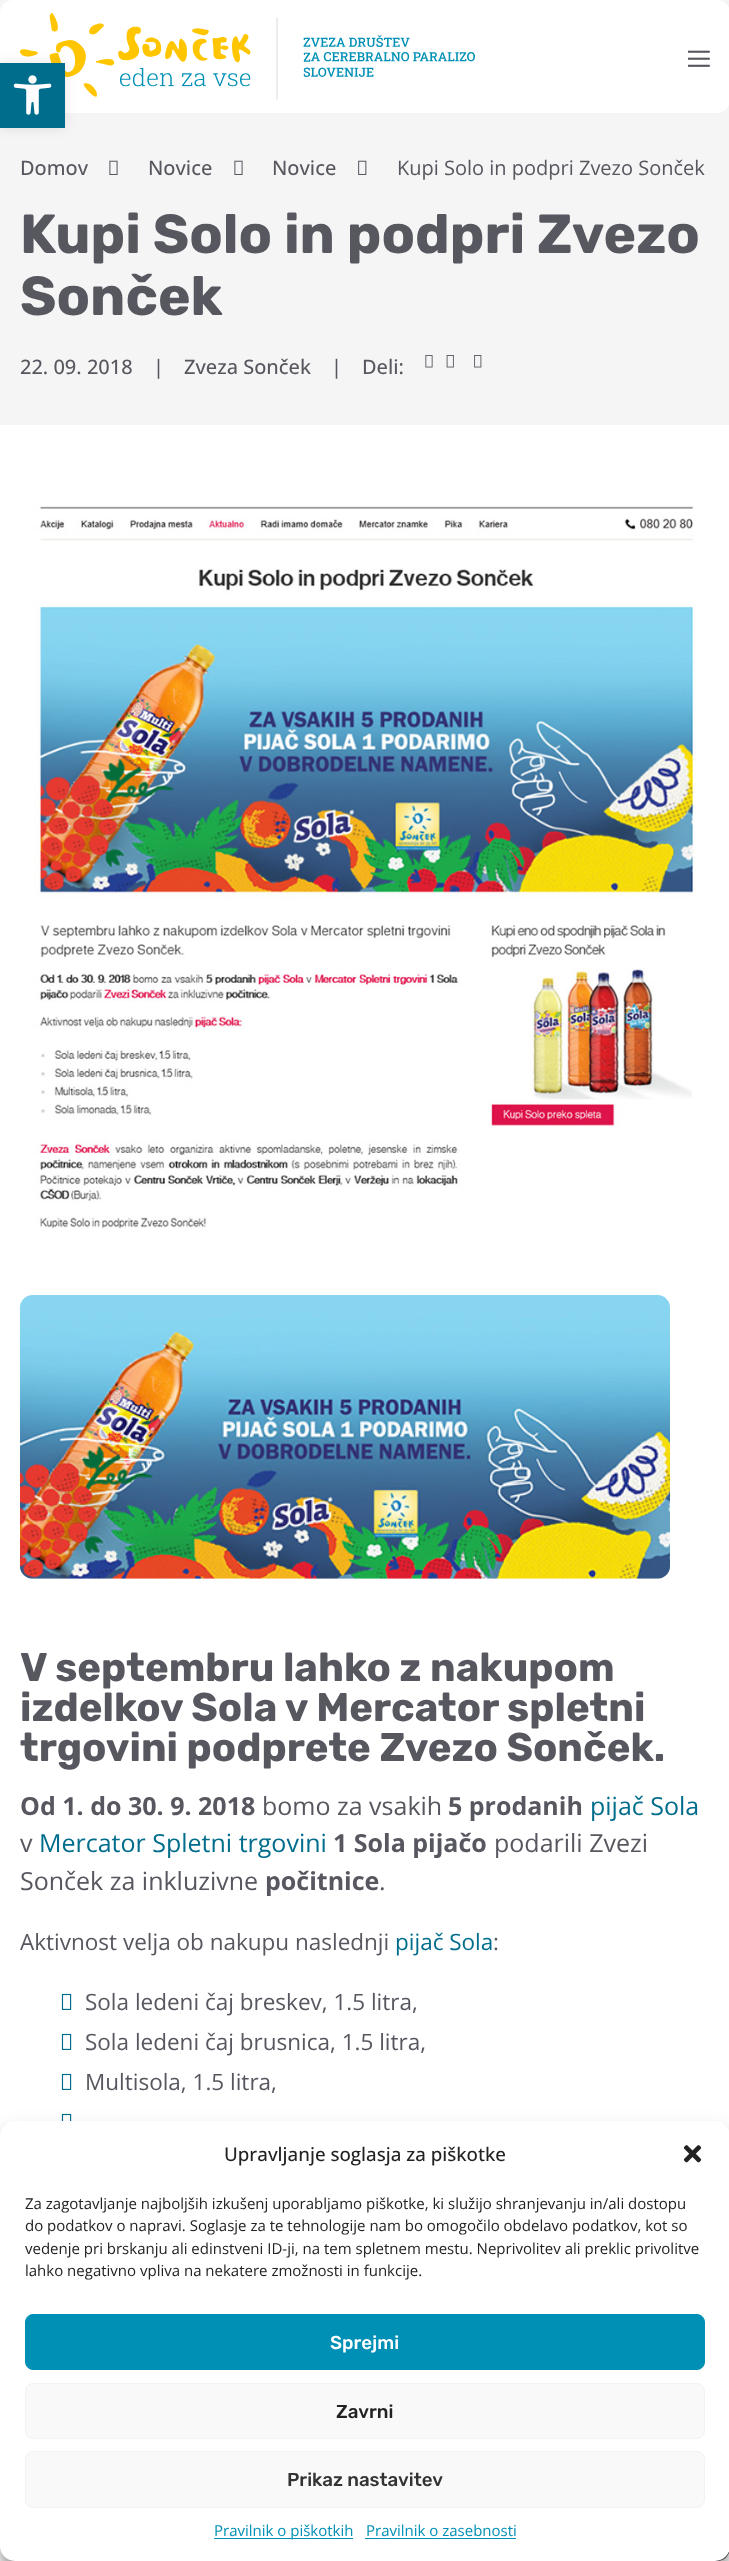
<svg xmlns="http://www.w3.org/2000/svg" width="729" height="2561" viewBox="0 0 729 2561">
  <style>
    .t1 { font: 500 20px Open Sans; fill: #575760; }
    .t2 { font: 20px Open Sans; fill: #575760; }
    .t3 { font: bold 55px Rubik; fill: #575760; }
    .t4 { font: bold 40px Rubik; fill: #575760; }
    .t5 { font: bold 25px Open Sans; fill: #575760; }
    .t6 { font: 25px Open Sans; fill: #575760; }
    .t7 { font: 25px Open Sans; fill: #006d8c; }
    .t8 { font: 22.5px Open Sans; fill: #575760; }
    .t9 { font: 22.5px Open Sans; fill: #006d8c; }
    .t10 { font: 500 18.75px Open Sans; fill: #222; }
    .t11 { font: 15px Open Sans; fill: #222; }
    .t12 { font: 500 18.75px Rubik; fill: #fff; }
    .t13 { font: 500 18.75px Rubik; fill: #222; }
    .t14 { font: 500 18.75px Rubik; fill: #333; }
    .t15 { font: 15px Open Sans; fill: #0090b6; }
  </style>
  <rect width="100%" height="100%" fill="#fff"/>
  <rect x="0" y="0" width="729" height="425" fill="#f5f5f5"/>
  <rect x="0" y="0" width="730" height="113" rx="13" fill="#fff"/>
  <image x="20" y="13" width="455" height="87" href="images/1.png"/>
  <image x="688" y="50" width="22" height="17" href="images/2.png"/>
  <rect x="0" y="63" width="65" height="65" fill="#0000001a" filter="blur(6px)"/>
  <rect x="0" y="63" width="65" height="65" fill="#006d8c"/>
  <image x="13" y="75" width="39" height="40" href="images/3.png"/>
  <text x="20" y="175" class="t1">Domov</text>
  <image x="109" y="160" width="9" height="15" href="images/4.png"/>
  <text x="148" y="175" class="t1">Novice</text>
  <image x="234" y="160" width="9" height="15" href="images/4.png"/>
  <text x="272" y="175" class="t1">Novice</text>
  <image x="358" y="160" width="9" height="15" href="images/5.png"/>
  <text x="397" y="175" class="t2">Kupi Solo in podpri Zvezo Sonček</text>
  <text x="20" y="253" class="t3">Kupi Solo in podpri Zvezo</text>
  <text x="20" y="315" class="t3">Sonček</text>
  <text x="20" y="374" class="t1">22. 09. 2018</text>
  <text x="153" y="374" class="t1">|</text>
  <text x="184" y="374" class="t1">Zveza Sonček</text>
  <text x="331" y="374" class="t1">|</text>
  <text x="362" y="374" class="t1">Deli:</text>
  <image x="425" y="355" width="8" height="13" href="images/6.png"/>
  <image x="446" y="355" width="8" height="13" href="images/7.png"/>
  <image x="474" y="355" width="8" height="13" href="images/8.png"/>
  <image x="34" y="506" width="662" height="723" href="images/9.png"/>
  <image x="20" y="1295" width="650" height="284" href="images/10.png"/>
  <text x="20" y="1681" class="t4">V septembru lahko z nakupom</text>
  <text x="20" y="1721" class="t4">izdelkov Sola v Mercator spletni</text>
  <text x="20" y="1761" class="t4">trgovini podprete Zvezo Sonček.</text>
  <text x="20" y="1815" class="t5">Od 1. do 30. 9. 2018</text>
  <text x="262" y="1815" class="t6">bomo za vsakih</text>
  <text x="448" y="1815" class="t5">5 prodanih</text>
  <text x="590" y="1815" class="t7">pijač Sola</text>
  <text x="20" y="1852" class="t6">v</text>
  <text x="39" y="1852" class="t7">Mercator Spletni trgovini</text>
  <text x="333" y="1852" class="t5">1 Sola pijačo</text>
  <text x="494" y="1852" class="t6">podarili Zvezi</text>
  <text x="20" y="1890" class="t6">Sonček za inkluzivne</text>
  <text x="265" y="1890" class="t5">počitnice</text>
  <text x="379" y="1890" class="t6">.</text>
  <text x="20" y="1950" class="t8">Aktivnost velja ob nakupu naslednji</text>
  <text x="395" y="1950" class="t9">pijač Sola</text>
  <text x="493" y="1950" class="t8">:</text>
  <image x="61" y="1993" width="11" height="17" href="images/11.png"/>
  <text x="85" y="2010" class="t8">Sola ledeni čaj breskev, 1.5 litra,</text>
  <image x="61" y="2033" width="11" height="17" href="images/11.png"/>
  <text x="85" y="2050" class="t8">Sola ledeni čaj brusnica, 1.5 litra,</text>
  <image x="61" y="2073" width="11" height="17" href="images/11.png"/>
  <text x="85" y="2090" class="t8">Multisola, 1.5 litra,</text>
  <image x="61" y="2113" width="11" height="8" href="images/12.png"/>
  <rect x="628" y="2489" width="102" height="72" rx="13" fill="#55555e"/>
  <rect x="0" y="2129" width="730" height="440" rx="15" fill="#0000003b" filter="blur(4px)"/>
  <rect x="0" y="2134" width="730" height="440" rx="15" fill="#00000030" filter="blur(12.5px)"/>
  <rect x="0" y="2121" width="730" height="440" rx="15" fill="#fff"/>
  <text x="224" y="2161" class="t10">Upravljanje soglasja za piškotke</text>
  <image x="683" y="2145" width="19" height="18" href="images/13.png"/>
  <text x="25" y="2209" class="t11">Za zagotavljanje najboljših izkušenj uporabljamo piškotke, ki služijo shranjevanju in/ali dostopu</text>
  <text x="25" y="2231" class="t11">do podatkov o napravi. Soglasje za te tehnologije nam bo omogočilo obdelavo podatkov, kot so</text>
  <text x="25" y="2254" class="t11">vedenje pri brskanju ali edinstveni ID-ji, na tem spletnem mestu. Neprivolitev ali preklic privolitve</text>
  <text x="25" y="2276" class="t11">lahko negativno vpliva na nekatere zmožnosti in funkcije.</text>
  <rect x="25.5" y="2314.5" width="679" height="55" rx="7.5" fill="#0090b6" stroke="#0090b6"/>
  <text x="330" y="2349" class="t12">Sprejmi</text>
  <rect x="25.5" y="2383.5" width="679" height="55" rx="7.5" fill="#f9f9f9" stroke="#f2f2f2"/>
  <text x="336" y="2418" class="t13">Zavrni</text>
  <rect x="25.5" y="2451.5" width="679" height="56" rx="7.5" fill="#f9f9f9" stroke="#f2f2f2"/>
  <text x="287" y="2486" class="t14">Prikaz nastavitev</text>
  <rect x="214" y="2538" width="139" height="1" fill="#0090b6"/>
  <text x="214" y="2536" class="t15">Pravilnik o piškotkih</text>
  <text x="366" y="2536" class="t15">Pravilnik o zasebnosti</text>
  <rect x="365" y="2538" width="151" height="1" fill="#0090b6"/>
</svg>
